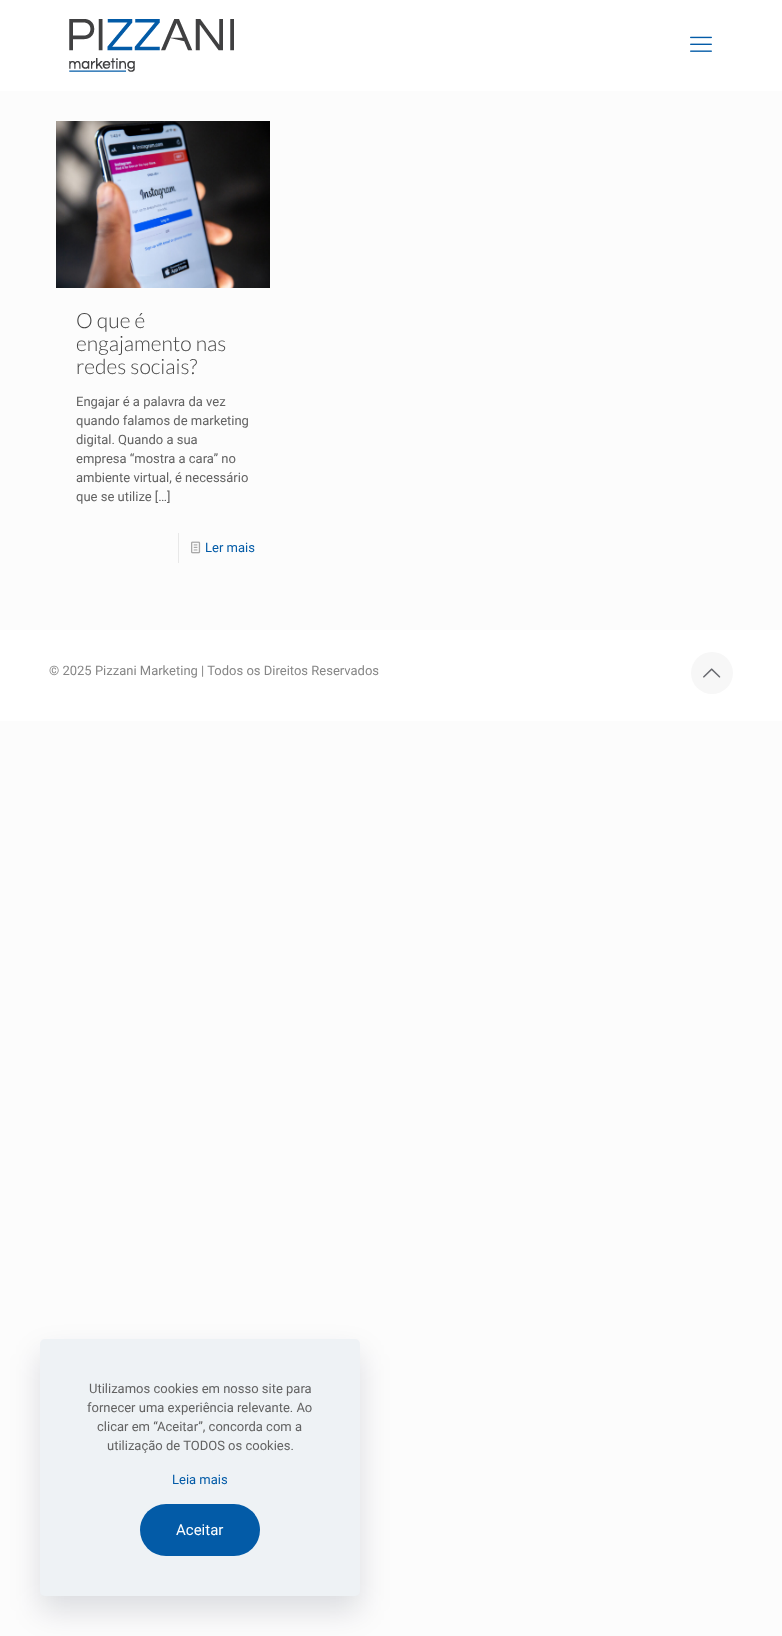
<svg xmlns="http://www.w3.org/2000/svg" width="782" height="1636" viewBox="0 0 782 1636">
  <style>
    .t1 { font: 300 21px Lato; fill: #444; }
    .t2 { font: 13px Roboto; fill: #626262; }
    .t3 { font: 13px Roboto; fill: #035ba7; }
    .t4 { font: 13px Roboto; fill: #868686; }
    .t5 { font: 15px Roboto; fill: #fff; }
  </style>
  <rect width="100%" height="100%" fill="#fcfcfc"/>
  <rect x="0" y="0" width="782" height="91" fill="#fff"/>
  <image x="69" y="19" width="165" height="53" href="images/1.png"/>
  <image x="690" y="36" width="22" height="16" href="images/2.png"/>
  <image x="56" y="121" width="214" height="167" href="images/3.png"/>
  <text x="76" y="328" class="t1">O que é</text>
  <text x="76" y="351" class="t1">engajamento nas</text>
  <text x="76" y="374" class="t1">redes sociais?</text>
  <text x="76" y="406" class="t2">Engajar é a palavra da vez</text>
  <text x="76" y="425" class="t2">quando falamos de marketing</text>
  <text x="76" y="444" class="t2">digital. Quando a sua</text>
  <text x="76" y="463" class="t2">empresa “mostra a cara” no</text>
  <text x="76" y="482" class="t2">ambiente virtual, é necessário</text>
  <text x="76" y="501" class="t2">que se utilize […]</text>
  <rect x="178" y="533" width="1" height="30" fill="#e8e8e8"/>
  <image x="191" y="541" width="10" height="13" href="images/4.png"/>
  <text x="205" y="552" class="t3">Ler mais</text>
  <rect x="0" y="630" width="782" height="91" fill="#fff"/>
  <text x="49" y="675" class="t4">© 2025 Pizzani Marketing | Todos os Direitos Reservados</text>
  <circle cx="712" cy="673" r="21" fill="#f7f7f7"/>
  <image x="703" y="668" width="18" height="10" href="images/5.png"/>
  <rect x="40" y="1354" width="320" height="257" rx="5" fill="#01072721" filter="blur(15px)"/>
  <rect x="40" y="1339" width="320" height="257" rx="5" fill="#eef2f5"/>
  <text x="89" y="1393" class="t2">Utilizamos cookies em nosso site para</text>
  <text x="87" y="1412" class="t2">fornecer uma experiência relevante. Ao</text>
  <text x="97" y="1431" class="t2">clicar em “Aceitar”, concorda com a</text>
  <text x="107" y="1450" class="t2">utilização de TODOS os cookies.</text>
  <text x="172" y="1484" class="t3">Leia mais</text>
  <rect x="140" y="1504" width="120" height="52" rx="26" fill="#035ba7"/>
  <text x="176" y="1535" class="t5">Aceitar</text>
</svg>
